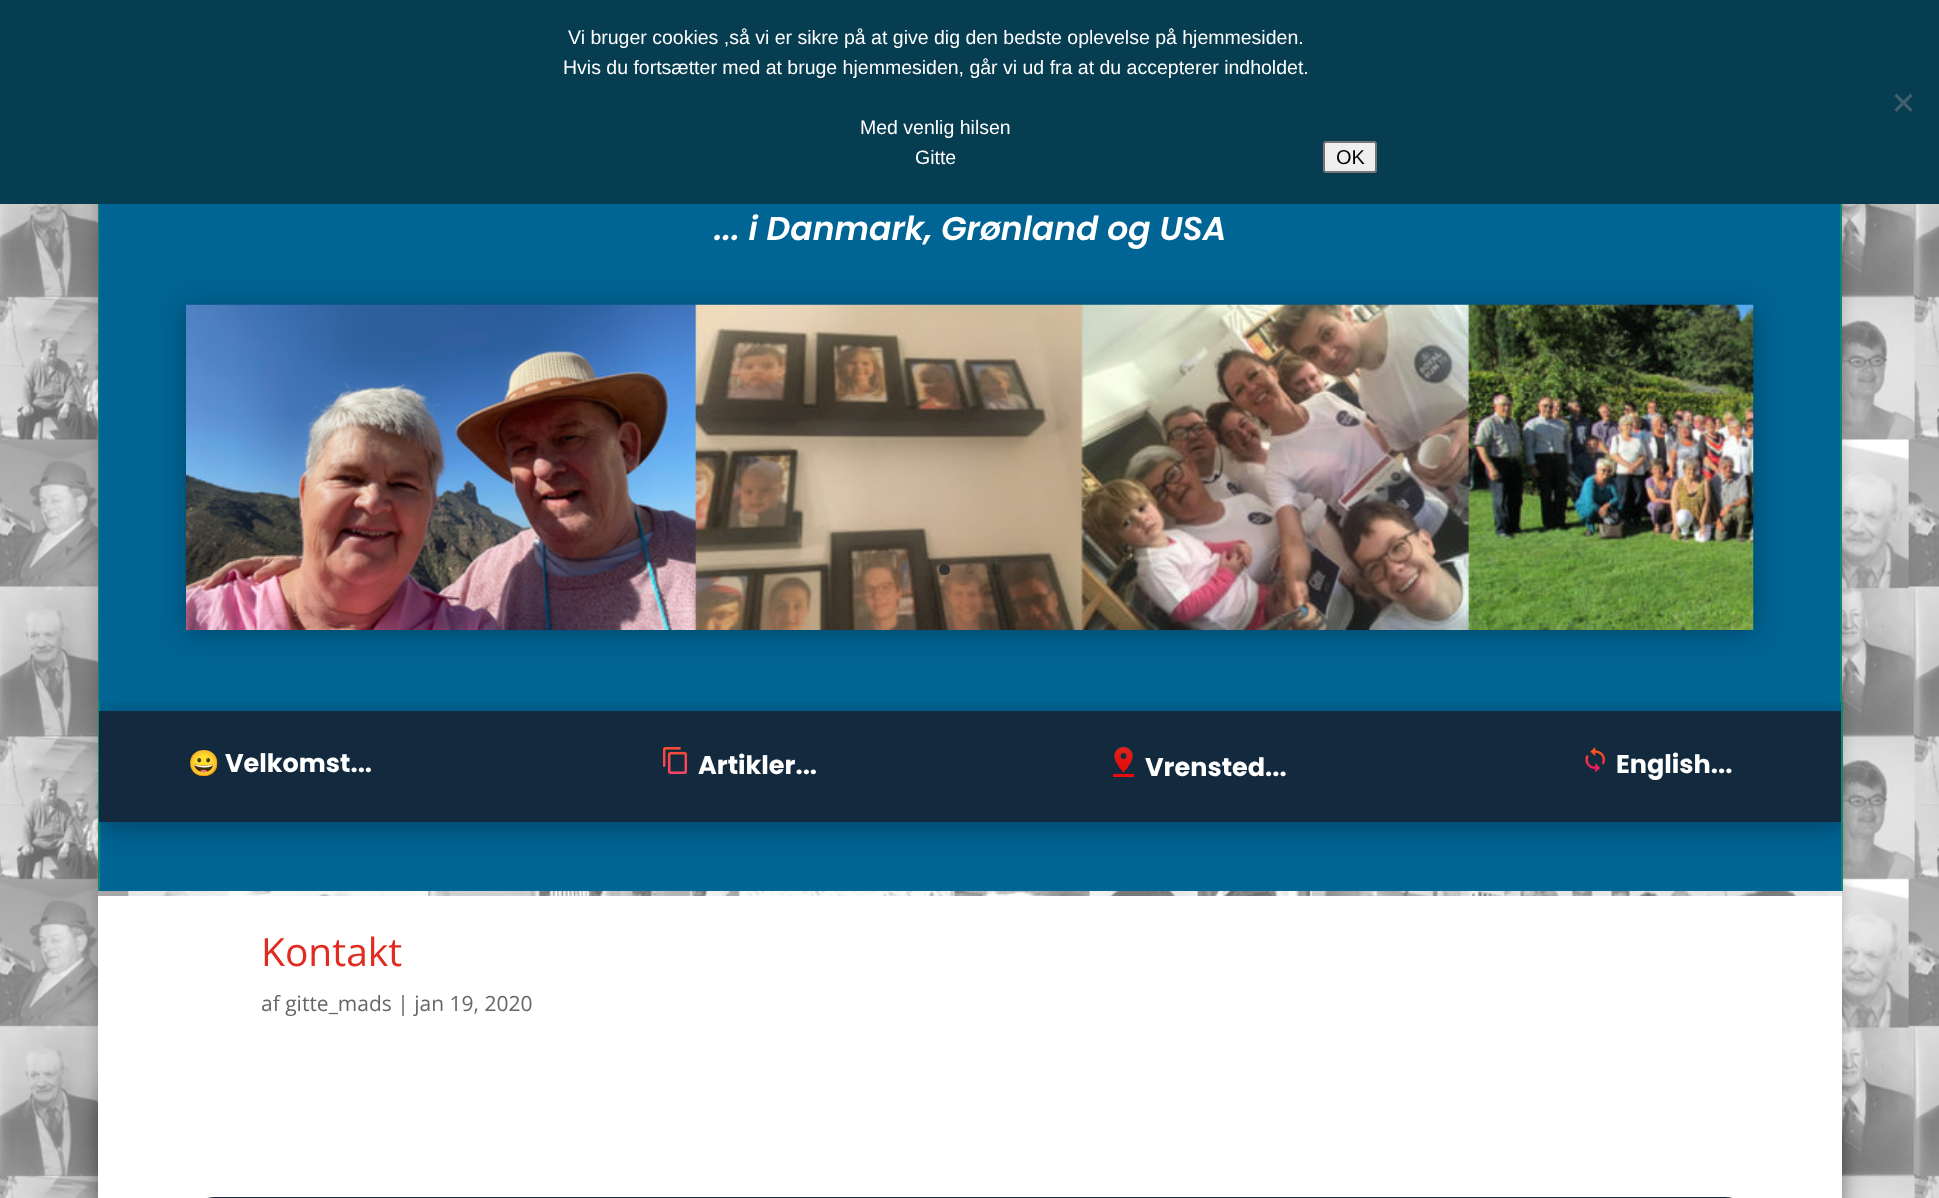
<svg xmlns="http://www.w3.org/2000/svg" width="1939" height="1198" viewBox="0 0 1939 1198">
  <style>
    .t1 { font: 19.5px Liberation Sans; fill: #fff; }
    .t2 { font: 20px Liberation Sans; fill: #000; }
    .t3 { font: italic 600 33px Poppins; fill: #fff; }
    .t4 { font: bold 25.5px Noto Color Emoji; fill: #fff; }
    .t5 { font: bold 25.5px Poppins; fill: #fff; }
    .t6 { font: 39px Open Sans; fill: #e02b20; }
    .t7 { font: 21px Open Sans; fill: #666; }
  </style>
  <defs>
    <clipPath id="clip1"><path d="M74 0H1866V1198H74ZM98 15H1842V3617H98Z" clip-rule="evenodd"/></clipPath>
    <clipPath id="clip2"><rect x="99" y="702" width="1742" height="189"/></clipPath>
  </defs>
  <rect width="100%" height="100%" fill="#fff"/>
  <image x="0" y="204" width="1939" height="994" href="images/1.png"/>
  <g clip-path="url(#clip1)">
    <rect x="98" y="15" width="1744" height="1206" fill="#00000033" filter="blur(7.5px)"/>
  </g>
  <rect x="99" y="204" width="1741" height="498" fill="#006494"/>
  <path d="M111 15H1827C1835 15 1842 22 1842 30V702H98V28C98 21 104 15 111 15ZM111 16H1827C1834 16 1840 23 1840 30V702H99V28C99 22 104 16 111 16Z" fill="#12876f" fill-rule="evenodd"/>
  <rect x="0" y="0" width="1939" height="204" fill="#063d51"/>
  <text x="568" y="44" class="t1">Vi bruger cookies ,så vi er sikre på at give dig den bedste oplevelse på hjemmesiden.</text>
  <text x="563" y="74" class="t1">Hvis du fortsætter med at bruge hjemmesiden, går vi ud fra at du accepterer indholdet.</text>
  <text x="860" y="134" class="t1">Med venlig hilsen</text>
  <text x="915" y="164" class="t1">Gitte</text>
  <path d="M1910.5 93.5L1912.5 96L1896.5 112L1894.5 109.5Z" fill="#435f69"/>
  <path d="M1894.5 96L1896.5 93.5L1912.5 109.5L1910.5 112Z" fill="#435f69"/>
  <rect x="1324" y="142" width="52" height="30" rx="2" fill="#efefef" stroke="#767676" stroke-width="2"/>
  <text x="1336" y="164" class="t2">OK</text>
  <text x="714" y="240" class="t3">... i Danmark, Grønland og USA</text>
  <rect x="186" y="308" width="1568" height="325" fill="#0000004d" filter="blur(13.5px)"/>
  <image x="186" y="304" width="1568" height="326" href="images/2.png"/>
  <circle cx="944.5" cy="569.5" r="5.5" fill="#333"/>
  <rect x="965" y="564" width="10" height="11" rx="5" fill="#00000026"/>
  <circle cx="995.5" cy="569.5" r="5.5" fill="#00000026"/>
  <rect x="100" y="702" width="1741" height="189" fill="#006494"/>
  <rect x="1841" y="702" width="2" height="189" fill="#12876f"/>
  <rect x="98" y="702" width="2" height="189" fill="#12876f"/>
  <g clip-path="url(#clip2)">
    <rect x="102" y="717" width="1742" height="111" rx="1.5" fill="#0000004d" filter="blur(13.5px)"/>
  </g>
  <path d="M99 711H1841V820.5C1841 821.5 1840.5 822 1839.5 822H99Z" fill="#13293d"/>
  <text x="188" y="772" class="t4">😀</text>
  <text x="225" y="772" class="t5">Velkomst...</text>
  <image x="663" y="747" width="24" height="27" href="images/3.png"/>
  <text x="698" y="774" class="t5">Artikler...</text>
  <image x="1113" y="747" width="21" height="30" href="images/4.png"/>
  <text x="1145" y="776" class="t5">Vrensted...</text>
  <image x="1585" y="747" width="20" height="26" href="images/5.png"/>
  <text x="1616" y="773" class="t5">English...</text>
  <rect x="98" y="1097" width="1744" height="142" fill="#0000004d" filter="blur(13.5px)"/>
  <rect x="98" y="896" width="1744" height="302" fill="#fff"/>
  <text x="261" y="966" class="t6">Kontakt</text>
  <text x="261" y="1011" class="t7">af gitte_mads | jan 19, 2020</text>
  <path d="M215 1197H1725C1741.5 1197 1755 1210.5 1755 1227V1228H185V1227C185 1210.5 198.5 1197 215 1197Z" fill="#13293d"/>
</svg>
